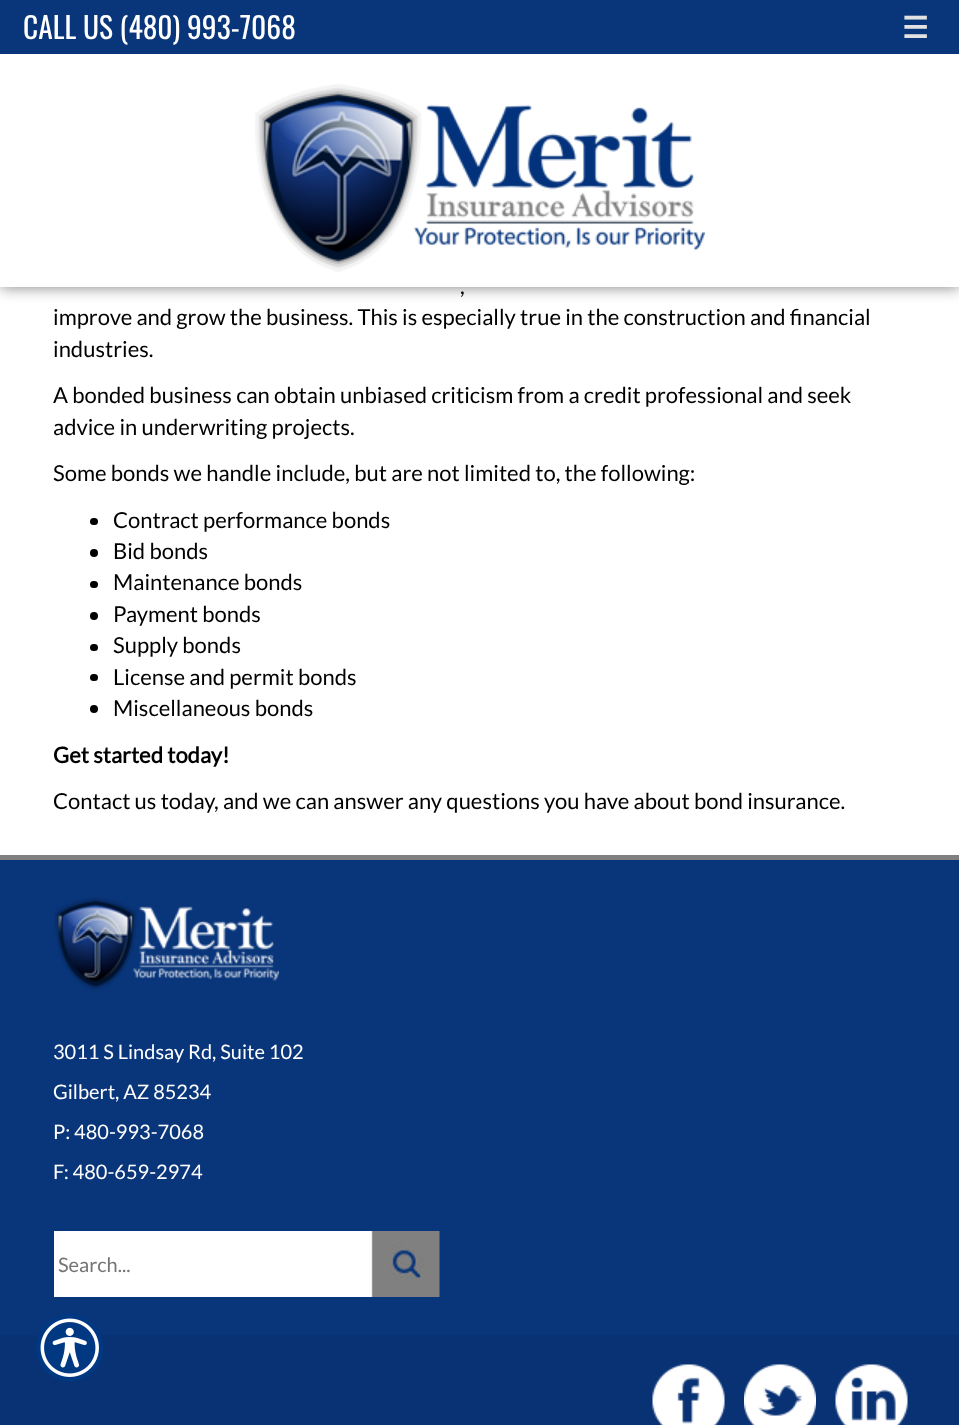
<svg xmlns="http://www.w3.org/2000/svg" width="959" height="1425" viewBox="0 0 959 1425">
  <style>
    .t1 { font: 29.5px Oswald; fill: #fff; }
    .t2 { font: bold 29.5px DejaVu Sans; fill: #e2e2e2; }
    .t3 { font: 22px Lato; fill: #000; }
    .t4 { font: bold 22px Lato; fill: #000; }
    .t5 { font: 20px Lato; fill: #fff; }
    .t6 { font: 20px Lato; fill: #757575; }
  </style>
  <rect width="100%" height="100%" fill="#fff"/>
  <rect x="0" y="0" width="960" height="287" fill="#00000080" filter="blur(7.5px)"/>
  <rect x="0" y="54" width="959" height="233" fill="#fff"/>
  <rect x="0" y="0" width="959" height="54" fill="#09357a"/>
  <text x="23" y="39" class="t1">CALL US (480) 993-7068</text>
  <text x="902" y="38" class="t2">☰</text>
  <image x="255" y="84" width="450" height="188" href="images/1.png"/>
  <text x="460" y="294" class="t3">,</text>
  <text x="53" y="325" class="t3">improve and grow the business. This is especially true in the construction and financial</text>
  <text x="53" y="357" class="t3">industries.</text>
  <text x="53" y="403" class="t3">A bonded business can obtain unbiased criticism from a credit professional and seek</text>
  <text x="53" y="435" class="t3">advice in underwriting projects.</text>
  <text x="53" y="481" class="t3">Some bonds we handle include, but are not limited to, the following:</text>
  <rect x="90" y="518" width="8" height="7" rx="3.5" fill="#000"/>
  <text x="113" y="528" class="t3">Contract performance bonds</text>
  <circle cx="94" cy="553" r="4" fill="#000"/>
  <text x="113" y="559" class="t3">Bid bonds</text>
  <rect x="90" y="581" width="8" height="7" rx="3.5" fill="#000"/>
  <text x="113" y="590" class="t3">Maintenance bonds</text>
  <circle cx="94" cy="616" r="4" fill="#000"/>
  <text x="113" y="622" class="t3">Payment bonds</text>
  <rect x="90" y="644" width="8" height="7" rx="3.5" fill="#000"/>
  <text x="113" y="653" class="t3">Supply bonds</text>
  <rect x="90" y="674" width="8" height="7" rx="3.5" fill="#000"/>
  <text x="113" y="685" class="t3">License and permit bonds</text>
  <circle cx="94" cy="709" r="4" fill="#000"/>
  <text x="113" y="716" class="t3">Miscellaneous bonds</text>
  <text x="53" y="763" class="t4">Get started today!</text>
  <text x="53" y="809" class="t3">Contact us today, and we can answer any questions you have about bond insurance.</text>
  <rect x="0" y="855" width="959" height="5" fill="#808080"/>
  <rect x="0" y="860" width="959" height="475" fill="#09357a"/>
  <image x="54" y="897" width="225" height="94" href="images/2.png"/>
  <text x="53" y="1059" class="t5">3011 S Lindsay Rd, Suite 102</text>
  <text x="53" y="1099" class="t5">Gilbert, AZ 85234</text>
  <text x="53" y="1139" class="t5">P: 480-993-7068</text>
  <text x="53" y="1179" class="t5">F: 480-659-2974</text>
  <image x="54" y="1231" width="386" height="66" href="images/3.png"/>
  <text x="58" y="1272" class="t6">Search...</text>
  <rect x="0" y="1335" width="959" height="90" fill="#093274"/>
  <image x="652" y="1364" width="73" height="61" href="images/4.png"/>
  <image x="744" y="1364" width="72" height="61" href="images/5.png"/>
  <image x="835" y="1364" width="73" height="61" href="images/6.png"/>
  <image x="36" y="1314" width="68" height="68" href="images/7.png"/>
</svg>
